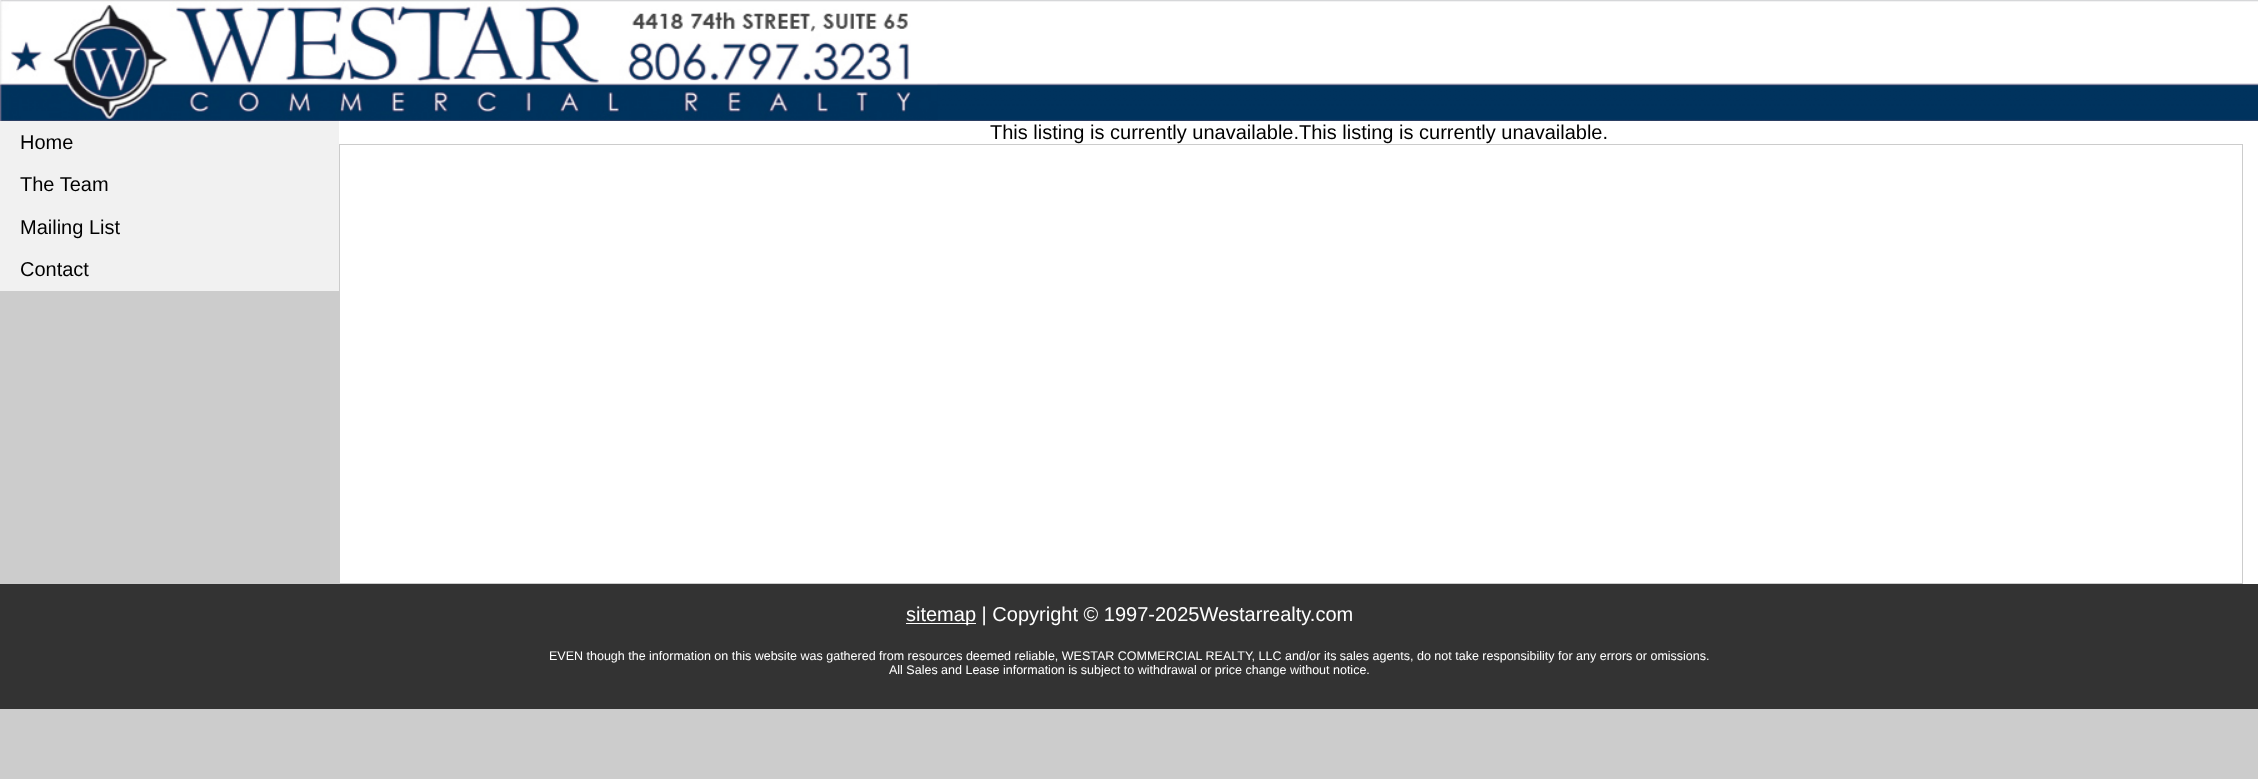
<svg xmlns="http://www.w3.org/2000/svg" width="2258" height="779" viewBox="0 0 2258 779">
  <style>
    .t1 { font: 20px Liberation Sans; fill: #000; }
    .t2 { font: 20px Liberation Sans; fill: #fff; }
    .t3 { font: 12.5px Liberation Sans; fill: #fff; }
  </style>
  <rect width="100%" height="100%" fill="#ccc"/>
  <image x="937" y="0" width="1321" height="121" href="images/1.png"/>
  <image x="0" y="0" width="938" height="121" href="images/2.png"/>
  <rect x="0" y="121" width="339" height="170" fill="#f1f1f1"/>
  <text x="20" y="149" class="t1">Home</text>
  <text x="20" y="191" class="t1">The Team</text>
  <text x="20" y="234" class="t1">Mailing List</text>
  <text x="20" y="276" class="t1">Contact</text>
  <rect x="339" y="121" width="1919" height="463" fill="#fff"/>
  <text x="990" y="139" class="t1">This listing is currently unavailable.This listing is currently unavailable.</text>
  <rect x="339.5" y="144.5" width="1903" height="439" fill="none" stroke="#ccc"/>
  <rect x="0" y="584" width="2258" height="125" fill="#333"/>
  <rect x="906" y="623" width="70" height="1" fill="#fff"/>
  <text x="906" y="621" class="t2">sitemap | Copyright © 1997-2025Westarrealty.com</text>
  <text x="549" y="660" class="t3">EVEN though the information on this website was gathered from resources deemed reliable, WESTAR COMMERCIAL REALTY, LLC and/or its sales agents, do not take responsibility for any errors or omissions.</text>
  <text x="889" y="674" class="t3">All Sales and Lease information is subject to withdrawal or price change without notice.</text>
</svg>
